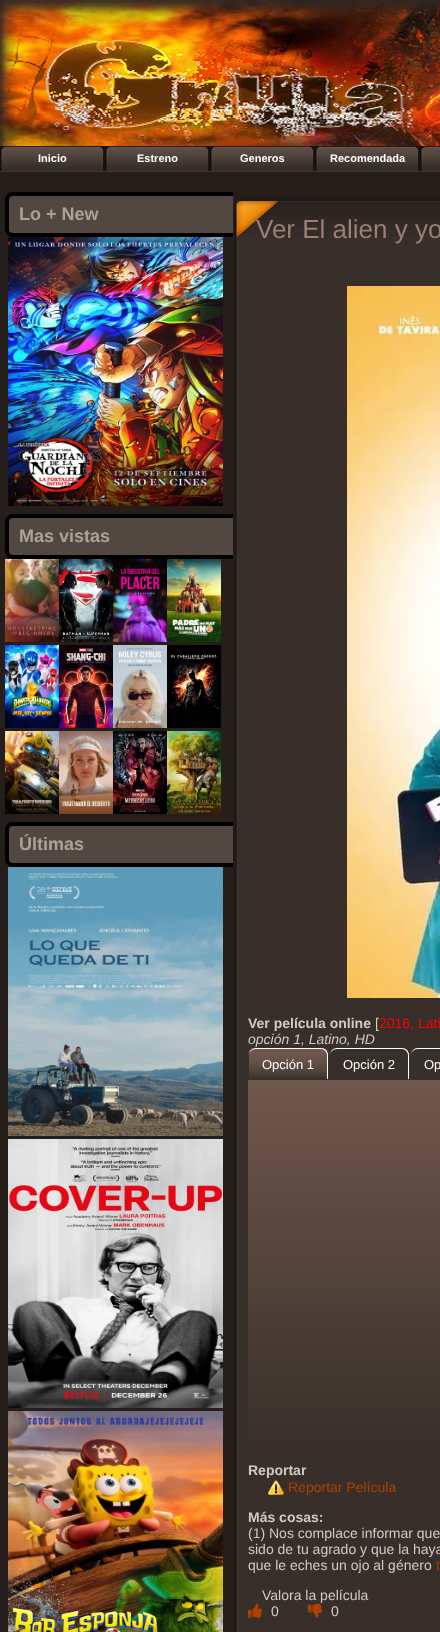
<svg xmlns="http://www.w3.org/2000/svg" width="440" height="1632" viewBox="0 0 440 1632">
  <style>
    .t1 { font: bold 11px Liberation Sans; fill: #fff; }
    .t2 { font: bold 18px Liberation Sans; fill: #aca394; }
    .t3 { font: 26px Liberation Sans; fill: #998076; }
    .t4 { font: bold 14px Liberation Sans; fill: #d1cbc1; }
    .t5 { font: 14px Liberation Sans; fill: #d1cbc1; }
    .t6 { font: 14px Liberation Sans; fill: #f00; }
    .t7 { font: italic 14px Liberation Sans; fill: #d1cbc1; }
    .t8 { font: 13px Liberation Sans; fill: #fff; }
    .t9 { font: 14px Liberation Sans; fill: #ad4100; }
  </style>
  <defs>
    <clipPath id="clip1"><path d="M255 1047H322C326 1047 329 1050 329 1054V1080H248V1054C248 1050 251 1047 255 1047Z"/></clipPath>
    <linearGradient id="g1" gradientUnits="userSpaceOnUse" x1="289" y1="1048" x2="289" y2="1079"><stop offset="0" stop-color="#6f584c"/><stop offset="1" stop-color="#382f2a"/></linearGradient>
    <linearGradient id="g2" gradientUnits="userSpaceOnUse" x1="288" y1="1049" x2="288" y2="1080"><stop offset="0" stop-color="#6f584c"/><stop offset="1" stop-color="#6f584c" stop-opacity="0"/></linearGradient>
    <linearGradient id="g3" gradientUnits="userSpaceOnUse" x1="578" y1="1080" x2="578" y2="1448"><stop offset="0" stop-color="#6f584c"/><stop offset="1" stop-color="#382f2a"/></linearGradient>
  </defs>
  <rect width="100%" height="100%" fill="#fff"/>
  <image x="0" y="0" width="440" height="116" href="images/1.png"/>
  <image x="0" y="116" width="440" height="30" href="images/2.png"/>
  <image x="0" y="146" width="105" height="25" href="images/3.png"/>
  <text x="38" y="162" class="t1">Inicio</text>
  <image x="105" y="146" width="105" height="25" href="images/3.png"/>
  <text x="137" y="162" class="t1">Estreno</text>
  <image x="210" y="146" width="105" height="25" href="images/3.png"/>
  <text x="240" y="162" class="t1">Generos</text>
  <image x="315" y="146" width="105" height="25" href="images/3.png"/>
  <text x="330" y="162" class="t1">Recomendada</text>
  <image x="420" y="146" width="20" height="25" href="images/4.png"/>
  <rect x="0" y="172" width="440" height="1460" fill="#251e1b"/>
  <rect x="0" y="171" width="440" height="1" fill="#3b3430"/>
  <rect x="7" y="194" width="234" height="41" rx="6" fill="#524741" stroke="#000" stroke-width="4"/>
  <text x="19" y="220" class="t2">Lo + New</text>
  <image x="8" y="237" width="215" height="269" href="images/5.png"/>
  <rect x="7" y="516" width="234" height="41" rx="6" fill="#524741" stroke="#000" stroke-width="4"/>
  <text x="19" y="542" class="t2">Mas vistas</text>
  <image x="5" y="559" width="54" height="83" href="images/6.png"/>
  <image x="59" y="559" width="54" height="83" href="images/7.png"/>
  <image x="113" y="559" width="54" height="83" href="images/8.png"/>
  <image x="167" y="559" width="54" height="83" href="images/9.png"/>
  <image x="5" y="645" width="54" height="83" href="images/10.png"/>
  <image x="59" y="645" width="54" height="83" href="images/11.png"/>
  <image x="113" y="645" width="54" height="83" href="images/12.png"/>
  <image x="167" y="645" width="54" height="83" href="images/13.png"/>
  <image x="5" y="731" width="54" height="83" href="images/14.png"/>
  <image x="59" y="731" width="54" height="83" href="images/15.png"/>
  <image x="113" y="731" width="54" height="83" href="images/16.png"/>
  <image x="167" y="731" width="54" height="83" href="images/17.png"/>
  <rect x="7" y="824" width="234" height="41" rx="6" fill="#524741" stroke="#000" stroke-width="4"/>
  <text x="19" y="850" class="t2">Últimas</text>
  <image x="8" y="867" width="215" height="269" href="images/18.png"/>
  <image x="8" y="1139" width="215" height="269" href="images/19.png"/>
  <image x="8" y="1411" width="215" height="221" href="images/20.png"/>
  <image x="233" y="192" width="207" height="45" href="images/21.png"/>
  <image x="233" y="237" width="207" height="1395" href="images/22.png"/>
  <text x="256" y="238" class="t3">Ver El alien y yo</text>
  <image x="347" y="286" width="93" height="712" href="images/23.png"/>
  <text x="248" y="1028" class="t4">Ver película online</text>
  <text x="375" y="1028" class="t5">[</text>
  <text x="379" y="1028" class="t6">2016, Lati</text>
  <text x="248" y="1044" class="t7">opción 1, Latino, HD</text>
  <g clip-path="url(#clip1)">
    <rect x="248" y="1048" width="81" height="31" fill="url(#g1)"/>
  </g>
  <path d="M255 1047.5H322C325.5 1047.5 328.5 1050.5 328.5 1054V1079.5H248.5V1054C248.5 1050.5 251.5 1047.5 255 1047.5Z" fill="none" stroke="#333"/>
  <path d="M256 1049C252 1049 249 1052 249 1055V1079H327V1055C327 1052 324 1049 321 1049Z" fill="url(#g2)"/>
  <path d="M256 1048C252 1048 249 1051 249 1055C249 1052 252 1049 256 1049H321C324 1049 327 1052 327 1055V1079H328V1055C328 1051 325 1048 321 1048Z" fill="#fff"/>
  <text x="262" y="1069" class="t8">Opción 1</text>
  <path d="M336 1047.5H403C406.5 1047.5 409.5 1050.5 409.5 1054V1079.5H329.5V1054C329.5 1050.5 332.5 1047.5 336 1047.5Z" fill="none" stroke="#333"/>
  <path d="M337 1048C333 1048 330 1051 330 1055C330 1052 333 1049 337 1049H402C405 1049 408 1052 408 1055V1079H409V1055C409 1051 406 1048 402 1048Z" fill="#fff"/>
  <text x="343" y="1069" class="t8">Opción 2</text>
  <path d="M417 1047.5H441C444.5 1047.5 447.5 1050.5 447.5 1054V1079.5H410.5V1054C410.5 1050.5 413.5 1047.5 417 1047.5Z" fill="none" stroke="#333"/>
  <path d="M418 1048C414 1048 411 1051 411 1055C411 1052 414 1049 418 1049H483C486 1049 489 1052 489 1055V1079H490V1055C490 1051 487 1048 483 1048Z" fill="#fff"/>
  <text x="424" y="1069" class="t8">Op</text>
  <path d="M248 1080H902C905 1080 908 1083 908 1086V1441C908 1445 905 1448 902 1448H255C251 1448 248 1445 248 1441Z" fill="url(#g3)"/>
  <text x="248" y="1475" class="t4">Reportar</text>
  <image x="268" y="1480" width="16" height="15" href="images/24.png"/>
  <text x="288" y="1492" class="t9">Reportar Película</text>
  <text x="248" y="1522" class="t4">Más cosas:</text>
  <text x="248" y="1538" class="t5">(1) Nos complace informar que</text>
  <text x="248" y="1554" class="t5">sido de tu agrado y que la haya</text>
  <text x="248" y="1570" class="t5">que le eches un ojo al género</text>
  <text x="436" y="1570" class="t9">t</text>
  <text x="262" y="1600" class="t5">Valora la película</text>
  <image x="248" y="1603" width="14" height="15" href="images/25.png"/>
  <text x="271" y="1616" class="t5">0</text>
  <image x="308" y="1603" width="14" height="15" href="images/26.png"/>
  <text x="331" y="1616" class="t5">0</text>
</svg>
